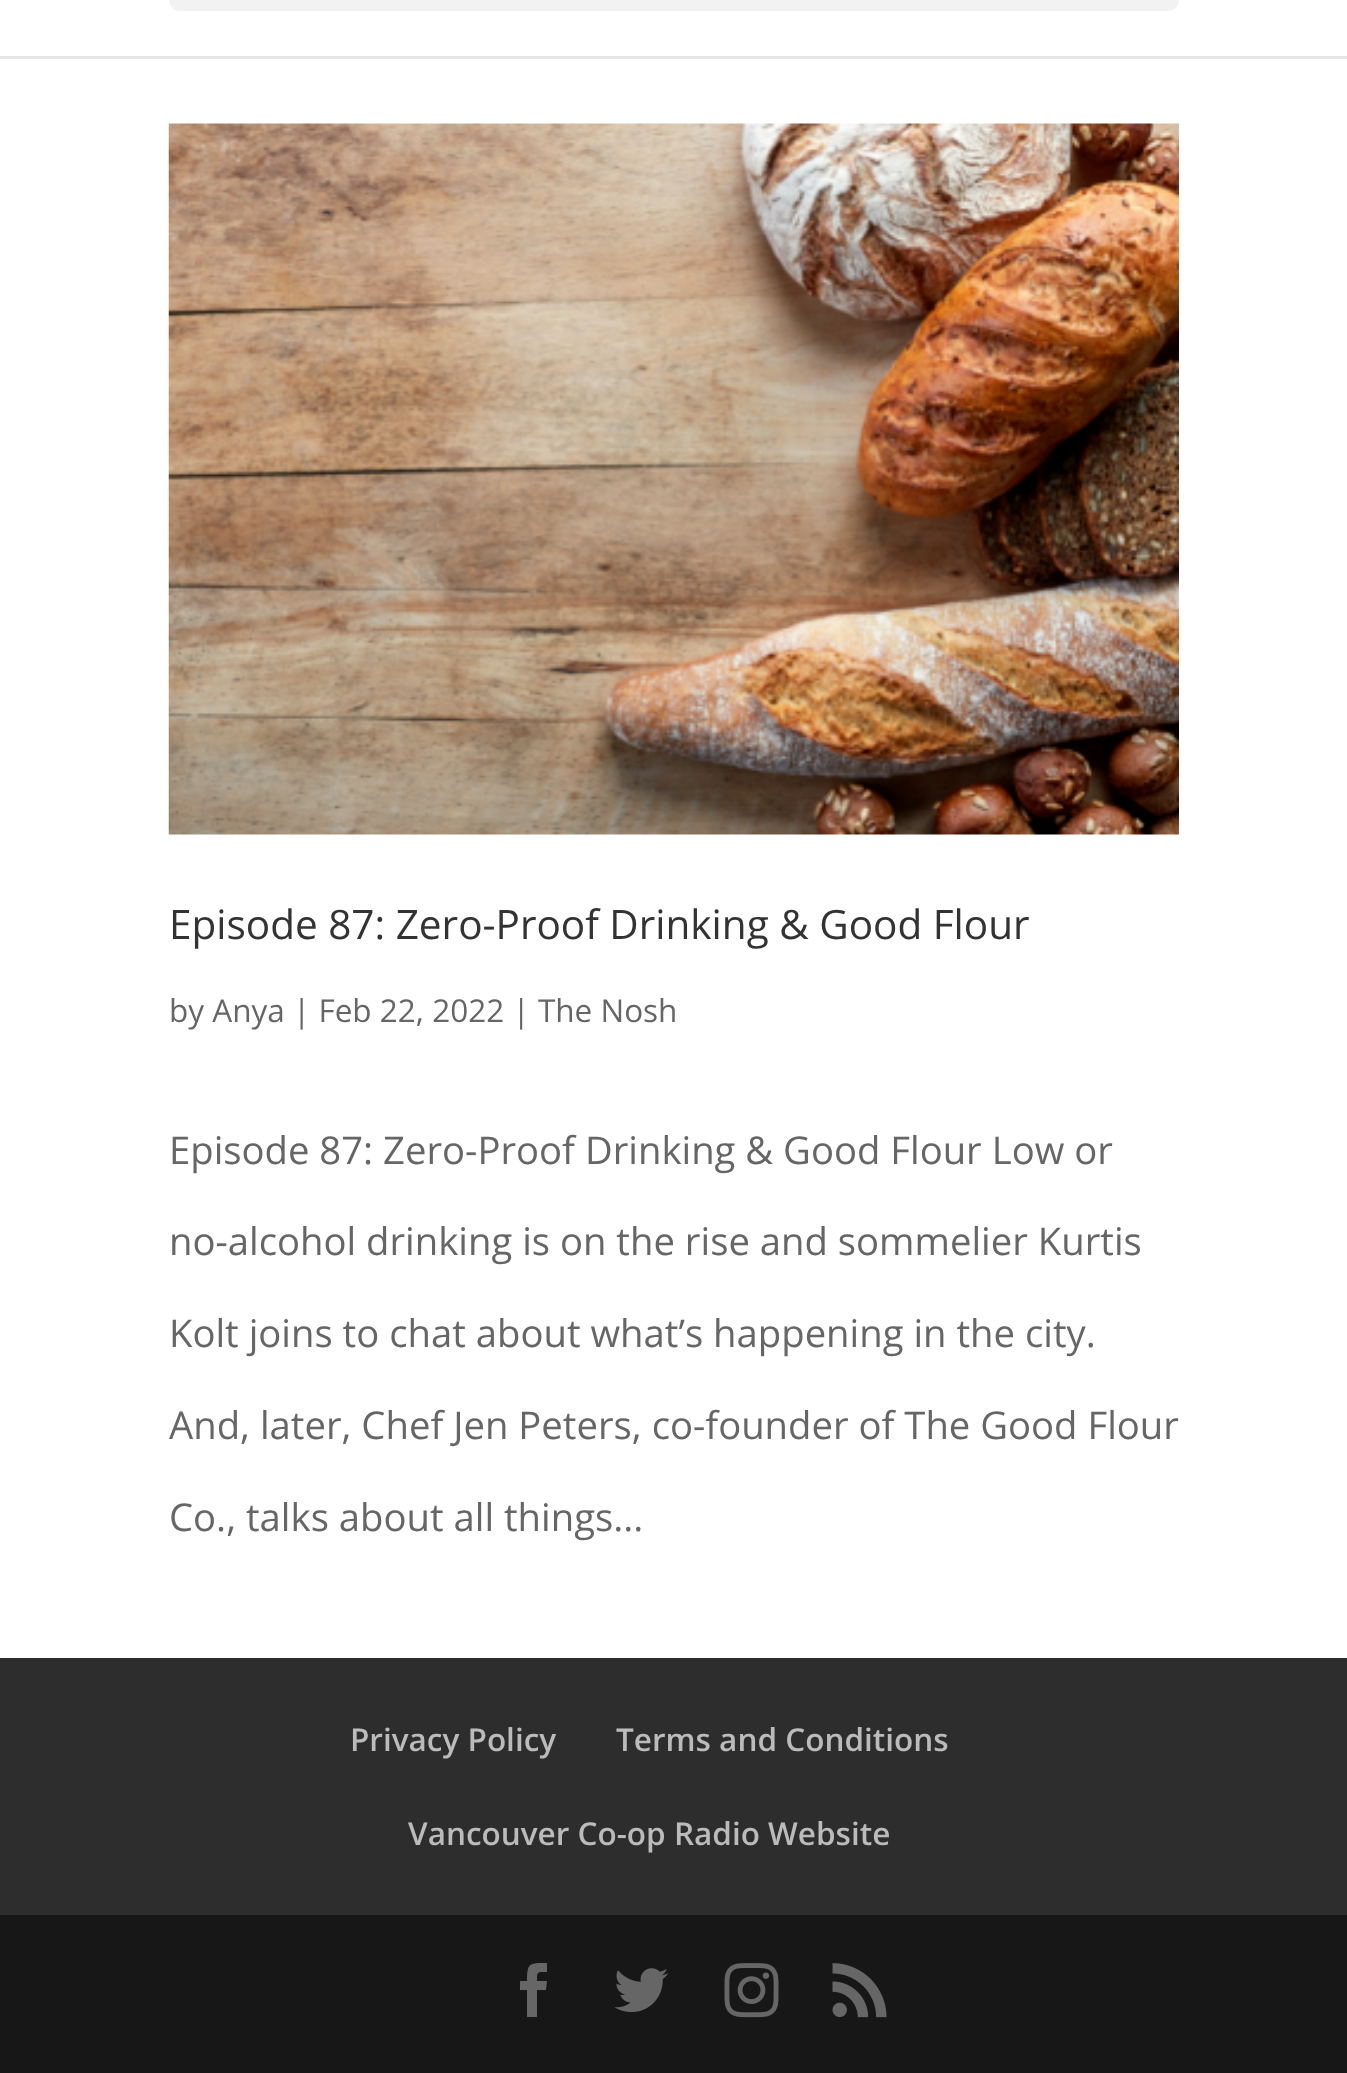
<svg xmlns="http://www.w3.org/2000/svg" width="1347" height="2073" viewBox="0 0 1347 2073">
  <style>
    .t1 { font: 40.5px Open Sans; fill: #333; }
    .t2 { font: 31.5px Open Sans; fill: #666; }
    .t3 { font: 38.25px Open Sans; fill: #666; }
    .t4 { font: 600 31.5px Open Sans; fill: #bbb; }
  </style>
  <rect width="100%" height="100%" fill="#fff"/>
  <path d="M0 56V59H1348V-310V56Z" fill="#e6e6e6"/>
  <rect x="169" y="-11" width="1010" height="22" rx="11" fill="#f2f2f2"/>
  <image x="168" y="123" width="1011" height="712" href="images/1.png"/>
  <text x="169" y="939" class="t1">Episode 87: Zero-Proof Drinking &amp; Good Flour</text>
  <text x="169" y="1022" class="t2">by Anya | Feb 22, 2022 | The Nosh</text>
  <text x="169" y="1164" class="t3">Episode 87: Zero-Proof Drinking &amp; Good Flour Low or</text>
  <text x="169" y="1255" class="t3">no-alcohol drinking is on the rise and sommelier Kurtis</text>
  <text x="169" y="1347" class="t3">Kolt joins to chat about what’s happening in the city.</text>
  <text x="169" y="1439" class="t3">And, later, Chef Jen Peters, co-founder of The Good Flour</text>
  <text x="169" y="1531" class="t3">Co., talks about all things...</text>
  <rect x="0" y="1658" width="1347" height="257" fill="#2d2d2d"/>
  <text x="350" y="1751" class="t4">Privacy Policy</text>
  <text x="616" y="1751" class="t4">Terms and Conditions</text>
  <text x="408" y="1845" class="t4">Vancouver Co-op Radio Website</text>
  <rect x="0" y="1915" width="1347" height="158" fill="#171717"/>
  <path d="M527 2017H537V1990H546L547 1981H537C537 1971 537 1972 547 1972V1963C530 1963 527 1962 527 1981H520V1990H527Z" fill="#666"/>
  <image x="614" y="1968" width="54" height="45" href="images/2.png"/>
  <image x="724" y="1963" width="55" height="55" href="images/3.png"/>
  <image x="832" y="1963" width="55" height="55" href="images/4.png"/>
</svg>
